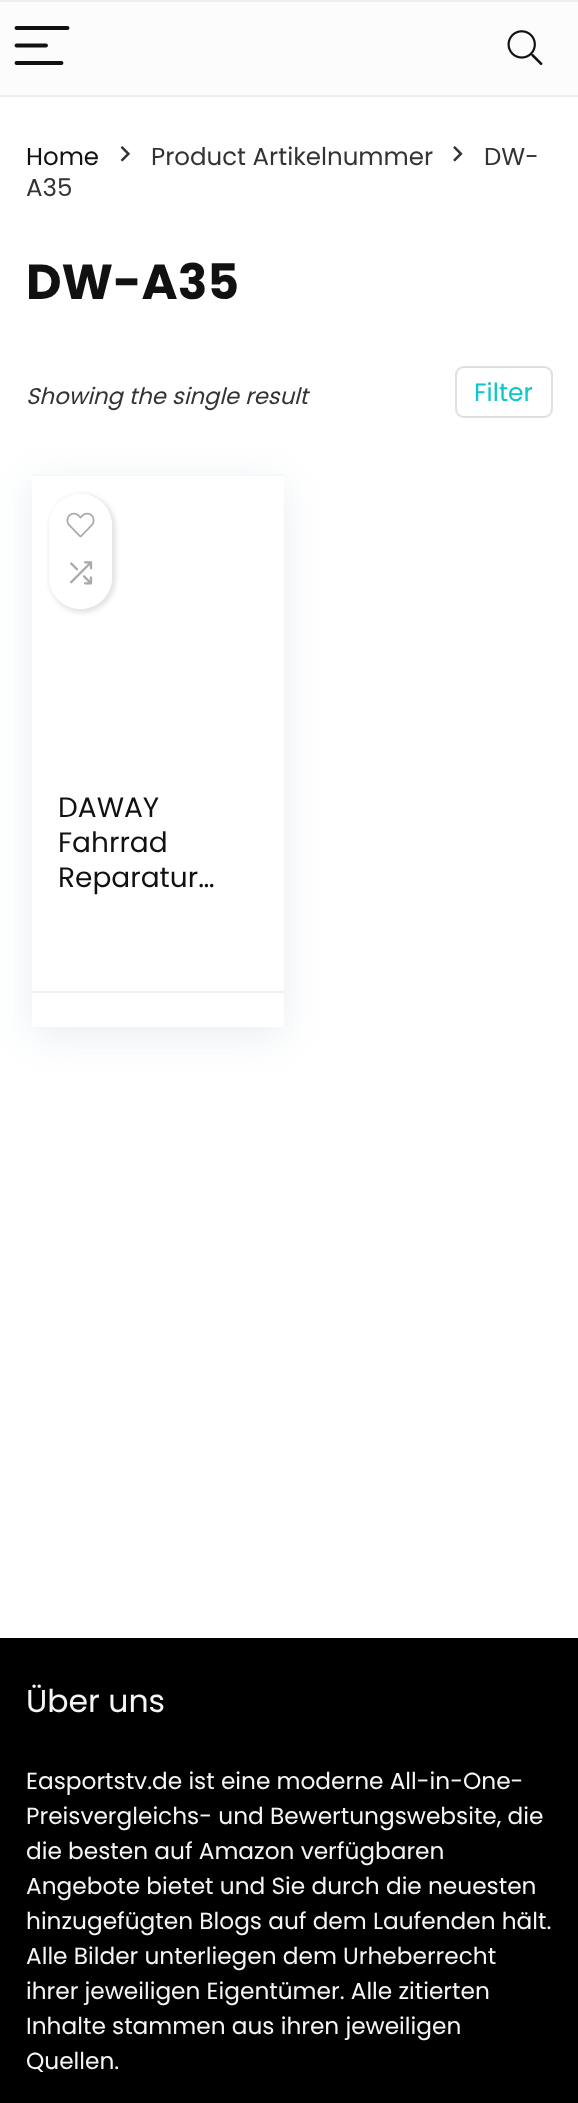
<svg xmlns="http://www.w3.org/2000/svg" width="578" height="2103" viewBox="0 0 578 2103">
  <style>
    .t1 { font: 24.5px Poppins; fill: #111; }
    .t2 { font: 24.5px Poppins; fill: #333; }
    .t3 { font: bold 49px Poppins; fill: #111; }
    .t4 { font: italic 22.75px Poppins; fill: #333; }
    .t5 { font: 25px Poppins; fill: #0ac8c7; }
    .t6 { font: 28px Poppins; fill: #111; }
    .t7 { font: 31.5px Poppins; fill: #f5f5f5; }
    .t8 { font: 23.25px Poppins; fill: #f5f5f5; }
  </style>
  <defs>
    <clipPath id="clip1"><path d="M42 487H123V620H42ZM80.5 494C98 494 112 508 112 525.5V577.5C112 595 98 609 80.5 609C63 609 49 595 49 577.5V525.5C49 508 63 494 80.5 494Z" clip-rule="evenodd"/></clipPath>
  </defs>
  <rect width="100%" height="100%" fill="#fff"/>
  <rect x="0" y="2" width="578" height="93" fill="#fcfcfc"/>
  <rect x="0" y="0" width="578" height="2" fill="#eee"/>
  <rect x="0" y="95" width="578" height="2" fill="#eee"/>
  <path d="M16.5 28H67.5M16.5 45.5H46M16.5 63H61.5" fill="none" stroke="#111" stroke-width="3.9" stroke-linecap="round"/>
  <image x="507" y="30" width="36" height="36" href="images/1.png"/>
  <text x="26" y="165" class="t1">Home</text>
  <image x="120" y="146" width="10" height="16" href="images/2.png"/>
  <text x="151" y="165" class="t2">Product Artikelnummer</text>
  <image x="453" y="146" width="10" height="16" href="images/3.png"/>
  <text x="484" y="165" class="t2">DW-</text>
  <text x="26" y="196" class="t2">A35</text>
  <text x="26" y="299" class="t3">DW-A35</text>
  <text x="26" y="404" class="t4">Showing the single result</text>
  <rect x="456" y="367" width="96" height="50" rx="8" fill="none" stroke="#dce0e0" stroke-width="2"/>
  <text x="474" y="401" class="t5">Filter</text>
  <rect x="32" y="483" width="252" height="553" fill="#bccfdb59" filter="blur(20px)"/>
  <rect x="32" y="476" width="252" height="551" fill="#fff"/>
  <rect x="32" y="474" width="252" height="2" fill="#f8f8f8"/>
  <g clip-path="url(#clip1)">
    <rect x="49" y="494" width="67" height="119" rx="33.5" fill="#0000001a" filter="blur(2px)"/>
  </g>
  <rect x="49" y="494" width="63" height="115" rx="31.5" fill="#ffffffc7"/>
  <image x="66" y="512" width="29" height="26" href="images/4.png"/>
  <image x="70" y="561" width="23" height="24" href="images/5.png"/>
  <text x="58" y="817" class="t6">DAWAY</text>
  <text x="58" y="852" class="t6">Fahrrad</text>
  <text x="58" y="887" class="t6">Reparatur…</text>
  <rect x="32" y="991" width="252" height="2" fill="#f0f0f0"/>
  <rect x="0" y="1638" width="578" height="465" fill="#000"/>
  <text x="26" y="1712" class="t7">Über uns</text>
  <text x="26" y="1789" class="t8">Easportstv.de ist eine moderne All-in-One-</text>
  <text x="26" y="1824" class="t8">Preisvergleichs- und Bewertungswebsite, die</text>
  <text x="26" y="1859" class="t8">die besten auf Amazon verfügbaren</text>
  <text x="26" y="1894" class="t8">Angebote bietet und Sie durch die neuesten</text>
  <text x="26" y="1929" class="t8">hinzugefügten Blogs auf dem Laufenden hält.</text>
  <text x="26" y="1964" class="t8">Alle Bilder unterliegen dem Urheberrecht</text>
  <text x="26" y="1999" class="t8">ihrer jeweiligen Eigentümer. Alle zitierten</text>
  <text x="26" y="2034" class="t8">Inhalte stammen aus ihren jeweiligen</text>
  <text x="26" y="2069" class="t8">Quellen.</text>
</svg>
